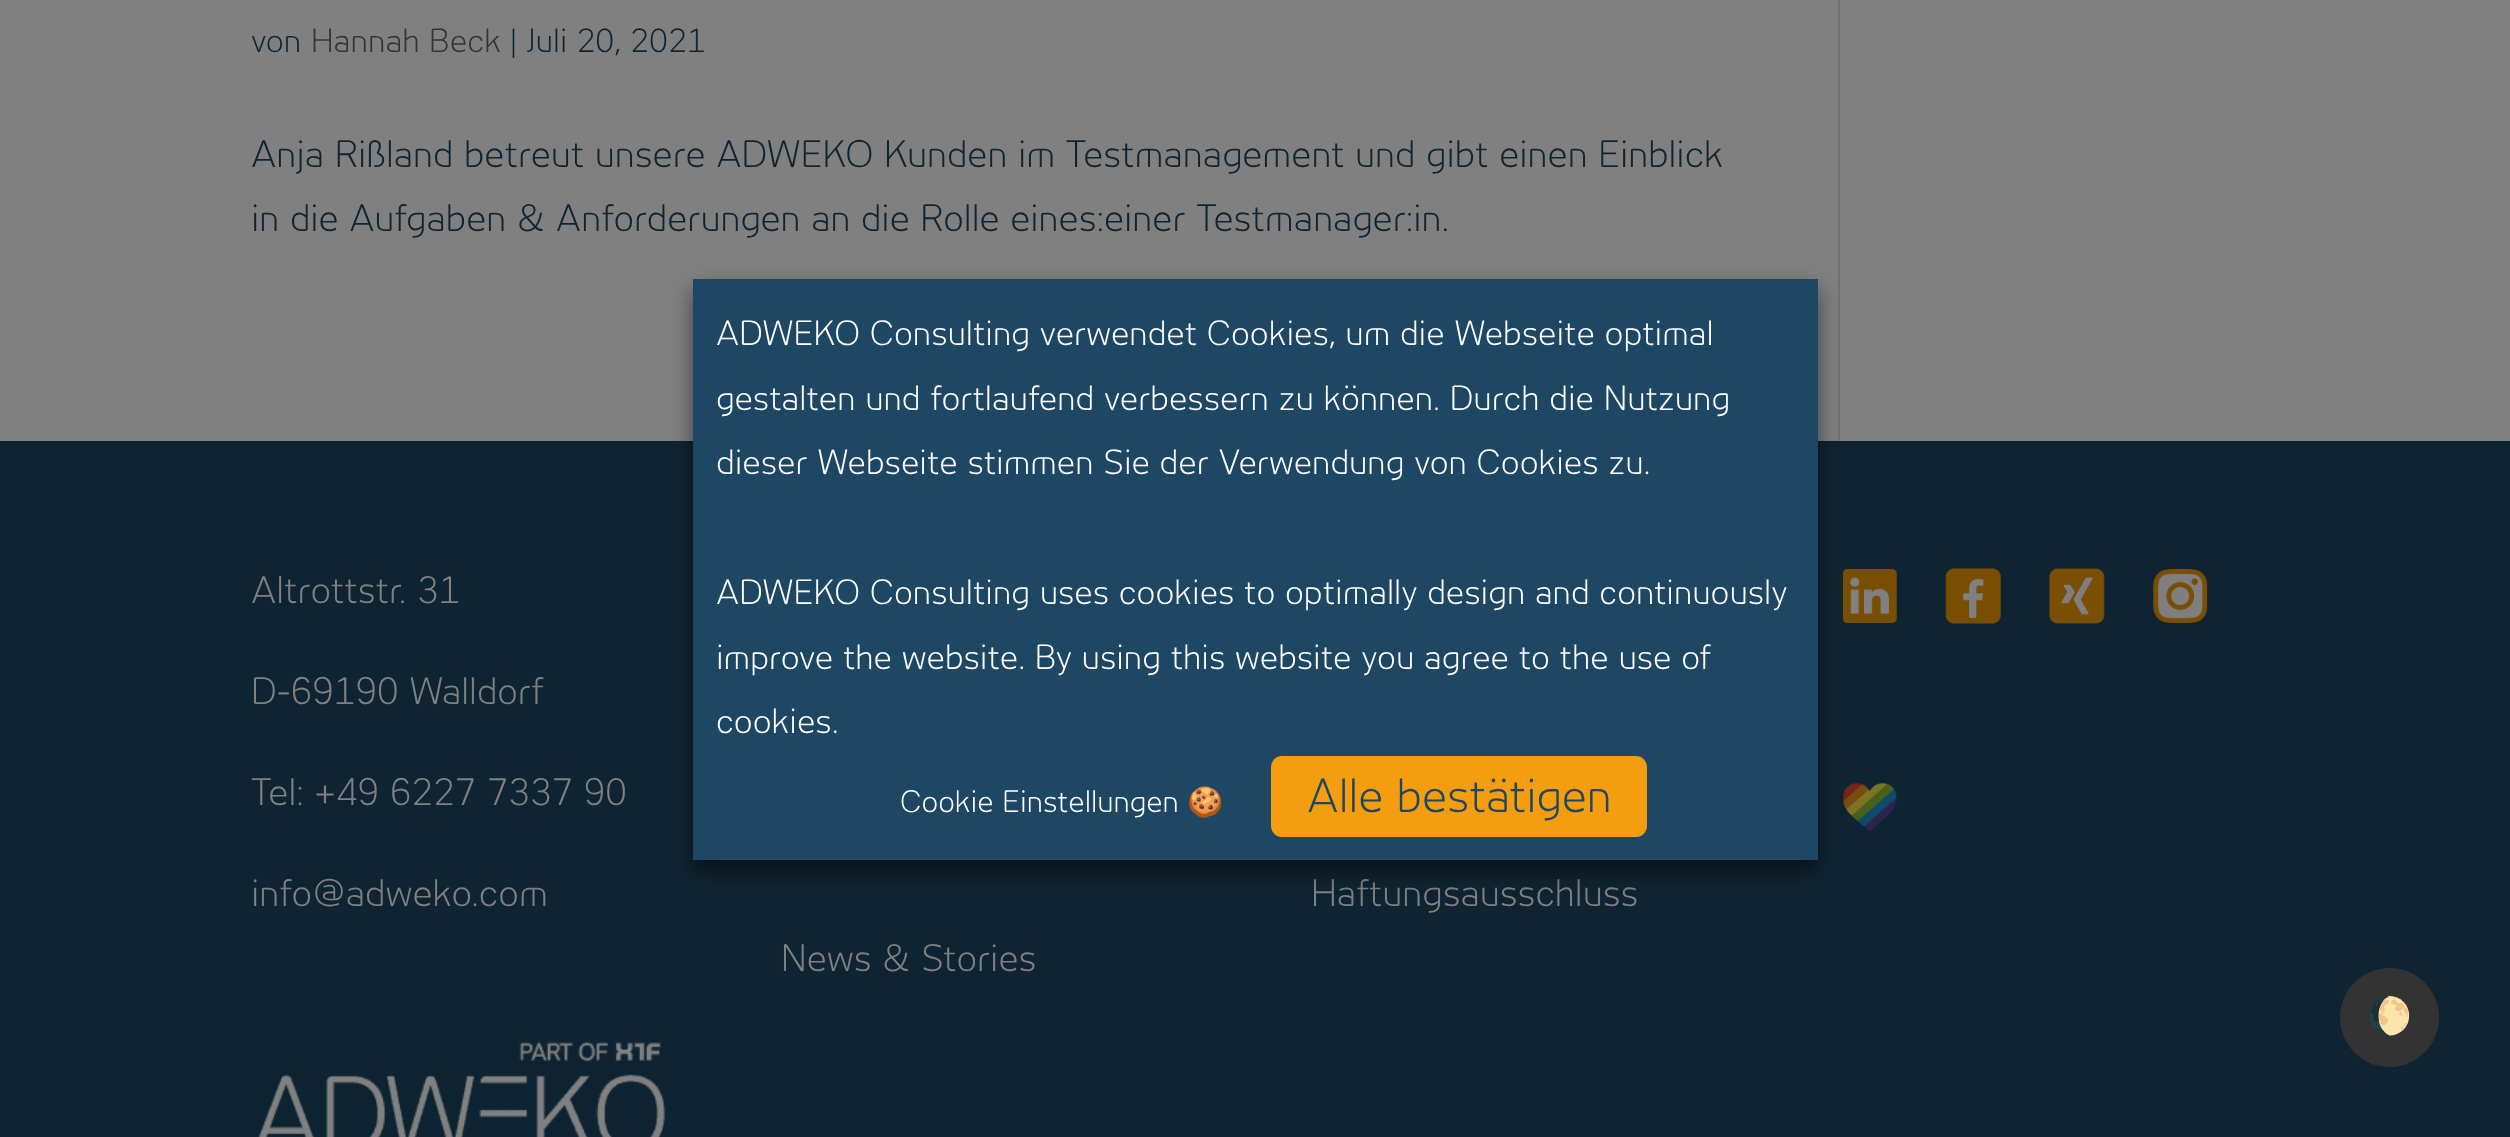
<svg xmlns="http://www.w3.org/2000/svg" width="2510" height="1137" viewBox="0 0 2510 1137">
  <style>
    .t1 { font: 300 31.5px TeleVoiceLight; fill: #0f2432; }
    .t2 { font: 300 31.5px TeleVoiceLight; fill: #333; }
    .t3 { font: 300 36px TeleVoiceLight; fill: #0f2432; }
    .t4 { font: 300 36px TeleVoiceLight; fill: #808080; }
    .t5 { font: 300 33px TeleVoiceLight; fill: #fff; }
    .t6 { font: 300 29.25px TeleVoiceLight; fill: #fff; }
    .t7 { font: 29.25px Noto Color Emoji; fill: #fff; }
    .t8 { font: 300 45px TeleVoiceLight; fill: #1e4763; }
    .t9 { font: bold 36px Noto Color Emoji; fill: #fff; }
  </style>
  <rect width="100%" height="100%" fill="#808080"/>
  <text x="251" y="52" class="t1">von</text>
  <text x="311" y="52" class="t2">Hannah Beck</text>
  <text x="510" y="52" class="t1">| Juli 20, 2021</text>
  <text x="251" y="167" class="t3">Anja Rißland betreut unsere ADWEKO Kunden im Testmanagement und gibt einen Einblick</text>
  <text x="251" y="231" class="t3">in die Aufgaben &amp; Anforderungen an die Rolle eines:einer Testmanager:in.</text>
  <rect x="1838" y="0" width="2" height="441" fill="#717171"/>
  <rect x="0" y="441" width="2510" height="696" fill="#0f2432"/>
  <text x="251" y="603" class="t4">Altrottstr. 31</text>
  <text x="251" y="704" class="t4">D-69190 Walldorf</text>
  <text x="251" y="805" class="t4">Tel: +49 6227 7337 90</text>
  <text x="251" y="906" class="t4">info@adweko.com</text>
  <image x="258" y="1042" width="408" height="95" href="images/1.png"/>
  <text x="1311" y="906" class="t4">Haftungsausschluss</text>
  <image x="1842" y="568" width="55" height="56" href="images/2.png"/>
  <image x="1945" y="568" width="56" height="56" href="images/3.png"/>
  <image x="2049" y="568" width="56" height="56" href="images/4.png"/>
  <image x="2153" y="569" width="55" height="54" href="images/5.png"/>
  <image x="1842" y="783" width="55" height="49" href="images/6.png"/>
  <text x="781" y="971" class="t4">News &amp; Stories</text>
  <rect x="693" y="290" width="1125" height="581" fill="#00000080" filter="blur(11px)"/>
  <rect x="693" y="279" width="1125" height="581" fill="#1e4763"/>
  <text x="716" y="345" class="t5">ADWEKO Consulting verwendet Cookies, um die Webseite optimal</text>
  <text x="716" y="410" class="t5">gestalten und fortlaufend verbessern zu können. Durch die Nutzung</text>
  <text x="716" y="474" class="t5">dieser Webseite stimmen Sie der Verwendung von Cookies zu.</text>
  <text x="716" y="604" class="t5">ADWEKO Consulting uses cookies to optimally design and continuously</text>
  <text x="716" y="669" class="t5">improve the website. By using this website you agree to the use of</text>
  <text x="716" y="733" class="t5">cookies.</text>
  <text x="900" y="812" class="t6">Cookie Einstellungen</text>
  <text x="1187" y="812" class="t7">🍪</text>
  <rect x="1271" y="756" width="376" height="81" rx="11" fill="#f39d0f"/>
  <text x="1307" y="812" class="t8">Alle bestätigen</text>
  <circle cx="2389.5" cy="1017.5" r="49.5" fill="#333"/>
  <text x="2367" y="1028" class="t9">🌔</text>
</svg>
